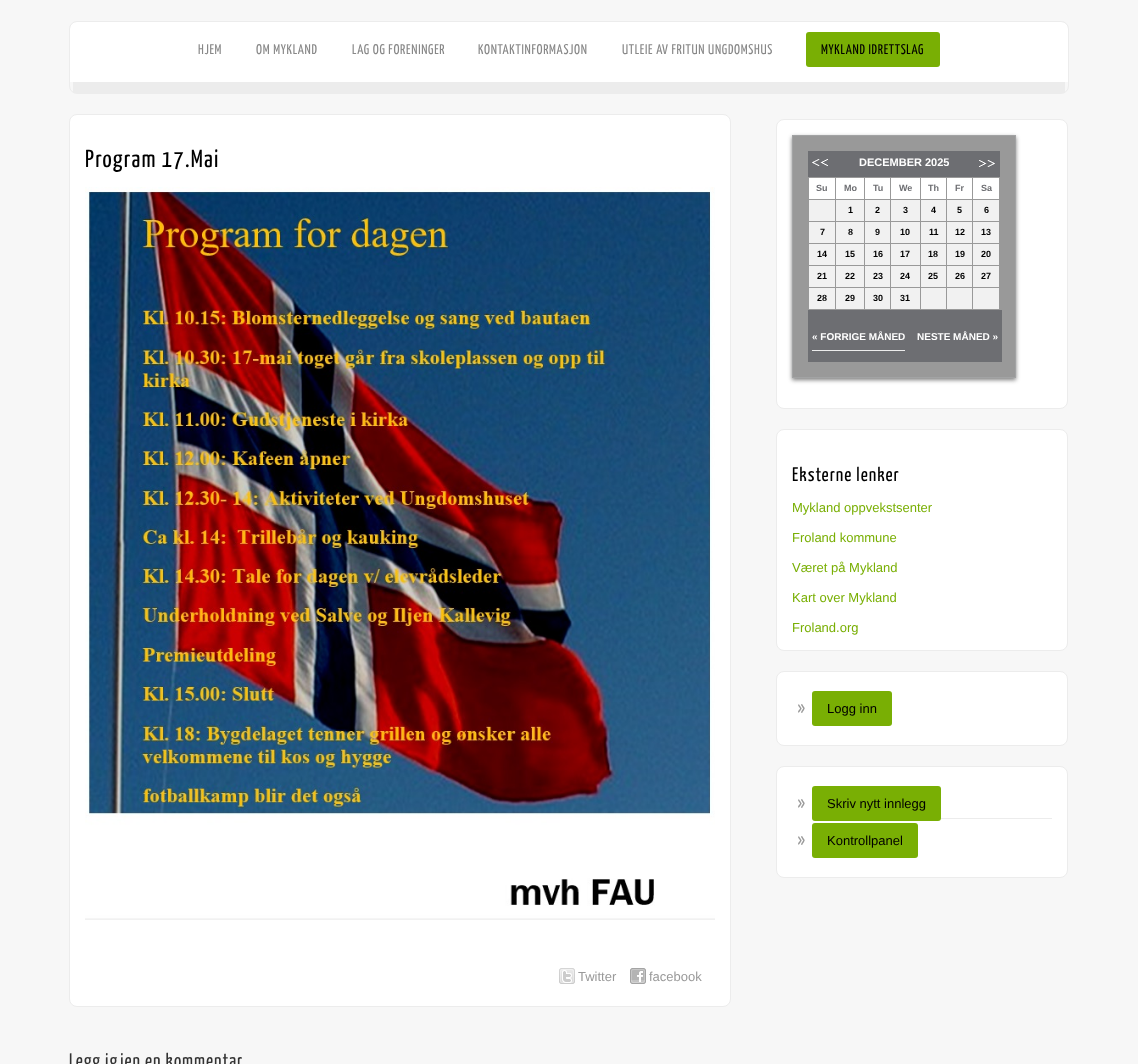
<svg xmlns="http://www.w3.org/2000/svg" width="1138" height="1064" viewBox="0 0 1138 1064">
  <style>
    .t1 { font: 14px Yanone Kaffeesatz; letter-spacing: 0.7px; fill: #888; }
    .t2 { font: 14px Yanone Kaffeesatz; letter-spacing: 0.7px; fill: #000; }
    .t3 { font: 24.75px Yanone Kaffeesatz; letter-spacing: 1.25px; fill: #000; }
    .t4 { font: 13px Liberation Sans; fill: #999; }
    .t5 { font: 19.5px Yanone Kaffeesatz; letter-spacing: 1px; fill: #333; }
    .t6 { font: bold 11px Liberation Sans; fill: #fff; }
    .t7 { font: bold 9px Liberation Sans; fill: #6d6e72; }
    .t8 { font: bold 9px Liberation Sans; fill: #000; }
    .t9 { font: bold 10px Liberation Sans; fill: #fff; }
    .t10 { font: 19.5px Yanone Kaffeesatz; letter-spacing: 1px; fill: #000; }
    .t11 { font: 13px Liberation Sans; fill: #79af04; }
    .t12 { font: 13px Liberation Sans; fill: #000; }
  </style>
  <rect width="100%" height="100%" fill="#f7f7f7"/>
  <path d="M77 22H1061C1065 22 1068 25 1068 29V82H70V29C70 25 73 22 77 22Z" fill="#fff"/>
  <rect x="69.5" y="21.5" width="999" height="72" rx="7.5" fill="none" stroke="#ececec"/>
  <rect x="73" y="82" width="992" height="11" fill="#ececec"/>
  <text x="198" y="54" class="t1">HJEM</text>
  <text x="256" y="54" class="t1">OM MYKLAND</text>
  <text x="352" y="54" class="t1">LAG OG FORENINGER</text>
  <text x="478" y="54" class="t1">KONTAKTINFORMASJON</text>
  <text x="622" y="54" class="t1">UTLEIE AV FRITUN UNGDOMSHUS</text>
  <rect x="806" y="32" width="134" height="35" rx="3" fill="#79af04"/>
  <text x="821" y="54" class="t2">MYKLAND IDRETTSLAG</text>
  <rect x="69.5" y="114.5" width="661" height="892" rx="7.5" fill="#fff" stroke="#ececec"/>
  <text x="85" y="167" class="t3">Program 17.Mai</text>
  <image x="85" y="187" width="630" height="733" href="images/1.png"/>
  <image x="559" y="968" width="16" height="16" href="images/2.png"/>
  <text x="578" y="981" class="t4">Twitter</text>
  <image x="630" y="968" width="16" height="16" href="images/3.png"/>
  <text x="649" y="981" class="t4">facebook</text>
  <text x="69" y="1067" class="t5">Legg igjen en kommentar</text>
  <rect x="776.5" y="119.5" width="291" height="289" rx="7.5" fill="#fff" stroke="#ececec"/>
  <rect x="792" y="137" width="224" height="243" fill="#323232a1" filter="blur(2px)"/>
  <rect x="792.5" y="135.5" width="223" height="242" fill="#999" stroke="#a2a3a4"/>
  <rect x="808" y="151" width="192" height="26" fill="#6d6e72"/>
  <image x="812" y="159" width="16" height="7" href="images/4.png"/>
  <text x="859" y="166" class="t6">DECEMBER 2025</text>
  <image x="979" y="160" width="16" height="7" href="images/5.png"/>
  <rect x="809" y="178" width="26" height="21" fill="#fff"/>
  <text x="816" y="191" class="t7">Su</text>
  <rect x="836" y="178" width="28" height="21" fill="#fff"/>
  <text x="844" y="191" class="t7">Mo</text>
  <rect x="865" y="178" width="25" height="21" fill="#fff"/>
  <text x="873" y="191" class="t7">Tu</text>
  <rect x="891" y="178" width="29" height="21" fill="#fff"/>
  <text x="899" y="191" class="t7">We</text>
  <rect x="921" y="178" width="25" height="21" fill="#fff"/>
  <text x="928" y="191" class="t7">Th</text>
  <rect x="947" y="178" width="25" height="21" fill="#fff"/>
  <text x="955" y="191" class="t7">Fr</text>
  <rect x="973" y="178" width="26" height="21" fill="#fff"/>
  <text x="981" y="191" class="t7">Sa</text>
  <rect x="809" y="200" width="26" height="21" fill="#f1f1f1"/>
  <rect x="836" y="200" width="28" height="21" fill="#f1f1f1"/>
  <text x="848" y="213" class="t8">1</text>
  <rect x="865" y="200" width="25" height="21" fill="#f1f1f1"/>
  <text x="875" y="213" class="t8">2</text>
  <rect x="891" y="200" width="29" height="21" fill="#f1f1f1"/>
  <text x="903" y="213" class="t8">3</text>
  <rect x="921" y="200" width="25" height="21" fill="#f1f1f1"/>
  <text x="931" y="213" class="t8">4</text>
  <rect x="947" y="200" width="25" height="21" fill="#f1f1f1"/>
  <text x="957" y="213" class="t8">5</text>
  <rect x="973" y="200" width="26" height="21" fill="#f1f1f1"/>
  <text x="984" y="213" class="t8">6</text>
  <rect x="809" y="222" width="26" height="21" fill="#f1f1f1"/>
  <text x="820" y="235" class="t8">7</text>
  <rect x="836" y="222" width="28" height="21" fill="#f1f1f1"/>
  <text x="848" y="235" class="t8">8</text>
  <rect x="865" y="222" width="25" height="21" fill="#f1f1f1"/>
  <text x="875" y="235" class="t8">9</text>
  <rect x="891" y="222" width="29" height="21" fill="#f1f1f1"/>
  <text x="900" y="235" class="t8">10</text>
  <rect x="921" y="222" width="25" height="21" fill="#f1f1f1"/>
  <text x="929" y="235" class="t8">11</text>
  <rect x="947" y="222" width="25" height="21" fill="#f1f1f1"/>
  <text x="955" y="235" class="t8">12</text>
  <rect x="973" y="222" width="26" height="21" fill="#f1f1f1"/>
  <text x="981" y="235" class="t8">13</text>
  <rect x="809" y="244" width="26" height="21" fill="#f1f1f1"/>
  <text x="817" y="257" class="t8">14</text>
  <rect x="836" y="244" width="28" height="21" fill="#f1f1f1"/>
  <text x="845" y="257" class="t8">15</text>
  <rect x="865" y="244" width="25" height="21" fill="#f1f1f1"/>
  <text x="873" y="257" class="t8">16</text>
  <rect x="891" y="244" width="29" height="21" fill="#f1f1f1"/>
  <text x="900" y="257" class="t8">17</text>
  <rect x="921" y="244" width="25" height="21" fill="#f1f1f1"/>
  <text x="928" y="257" class="t8">18</text>
  <rect x="947" y="244" width="25" height="21" fill="#f1f1f1"/>
  <text x="955" y="257" class="t8">19</text>
  <rect x="973" y="244" width="26" height="21" fill="#f1f1f1"/>
  <text x="981" y="257" class="t8">20</text>
  <rect x="809" y="266" width="26" height="21" fill="#f1f1f1"/>
  <text x="817" y="279" class="t8">21</text>
  <rect x="836" y="266" width="28" height="21" fill="#f1f1f1"/>
  <text x="845" y="279" class="t8">22</text>
  <rect x="865" y="266" width="25" height="21" fill="#f1f1f1"/>
  <text x="873" y="279" class="t8">23</text>
  <rect x="891" y="266" width="29" height="21" fill="#f1f1f1"/>
  <text x="900" y="279" class="t8">24</text>
  <rect x="921" y="266" width="25" height="21" fill="#f1f1f1"/>
  <text x="928" y="279" class="t8">25</text>
  <rect x="947" y="266" width="25" height="21" fill="#f1f1f1"/>
  <text x="955" y="279" class="t8">26</text>
  <rect x="973" y="266" width="26" height="21" fill="#f1f1f1"/>
  <text x="981" y="279" class="t8">27</text>
  <rect x="809" y="288" width="26" height="21" fill="#f1f1f1"/>
  <text x="817" y="301" class="t8">28</text>
  <rect x="836" y="288" width="28" height="21" fill="#f1f1f1"/>
  <text x="845" y="301" class="t8">29</text>
  <rect x="865" y="288" width="25" height="21" fill="#f1f1f1"/>
  <text x="873" y="301" class="t8">30</text>
  <rect x="891" y="288" width="29" height="21" fill="#f1f1f1"/>
  <text x="900" y="301" class="t8">31</text>
  <rect x="921" y="288" width="25" height="21" fill="#f1f1f1"/>
  <rect x="947" y="288" width="25" height="21" fill="#f1f1f1"/>
  <rect x="973" y="288" width="26" height="21" fill="#f1f1f1"/>
  <rect x="808" y="310" width="194" height="52" fill="#6d6e72"/>
  <rect x="812" y="350" width="93" height="1" fill="#ececec"/>
  <text x="812" y="340" class="t9">« FORRIGE MÅNED</text>
  <text x="917" y="340" class="t9">NESTE MÅNED »</text>
  <rect x="776.5" y="429.5" width="291" height="221" rx="7.5" fill="#fff" stroke="#ececec"/>
  <text x="792" y="481" class="t10">Eksterne lenker</text>
  <text x="792" y="512" class="t11">Mykland oppvekstsenter</text>
  <text x="792" y="542" class="t11">Froland kommune</text>
  <text x="792" y="572" class="t11">Været på Mykland</text>
  <text x="792" y="602" class="t11">Kart over Mykland</text>
  <text x="792" y="632" class="t11">Froland.org</text>
  <rect x="776.5" y="671.5" width="291" height="74" rx="7.5" fill="#fff" stroke="#ececec"/>
  <image x="798" y="704" width="7" height="9" href="images/6.png"/>
  <rect x="812" y="691" width="80" height="35" rx="3" fill="#79af04"/>
  <text x="827" y="713" class="t12">Logg inn</text>
  <rect x="776.5" y="766.5" width="291" height="111" rx="7.5" fill="#fff" stroke="#ececec"/>
  <rect x="812" y="818" width="240" height="1" fill="#ececec"/>
  <image x="798" y="799" width="7" height="9" href="images/6.png"/>
  <rect x="812" y="786" width="129" height="35" rx="3" fill="#79af04"/>
  <text x="827" y="808" class="t12">Skriv nytt innlegg</text>
  <image x="798" y="836" width="7" height="9" href="images/6.png"/>
  <rect x="812" y="823" width="106" height="35" rx="3" fill="#79af04"/>
  <text x="827" y="845" class="t12">Kontrollpanel</text>
</svg>
